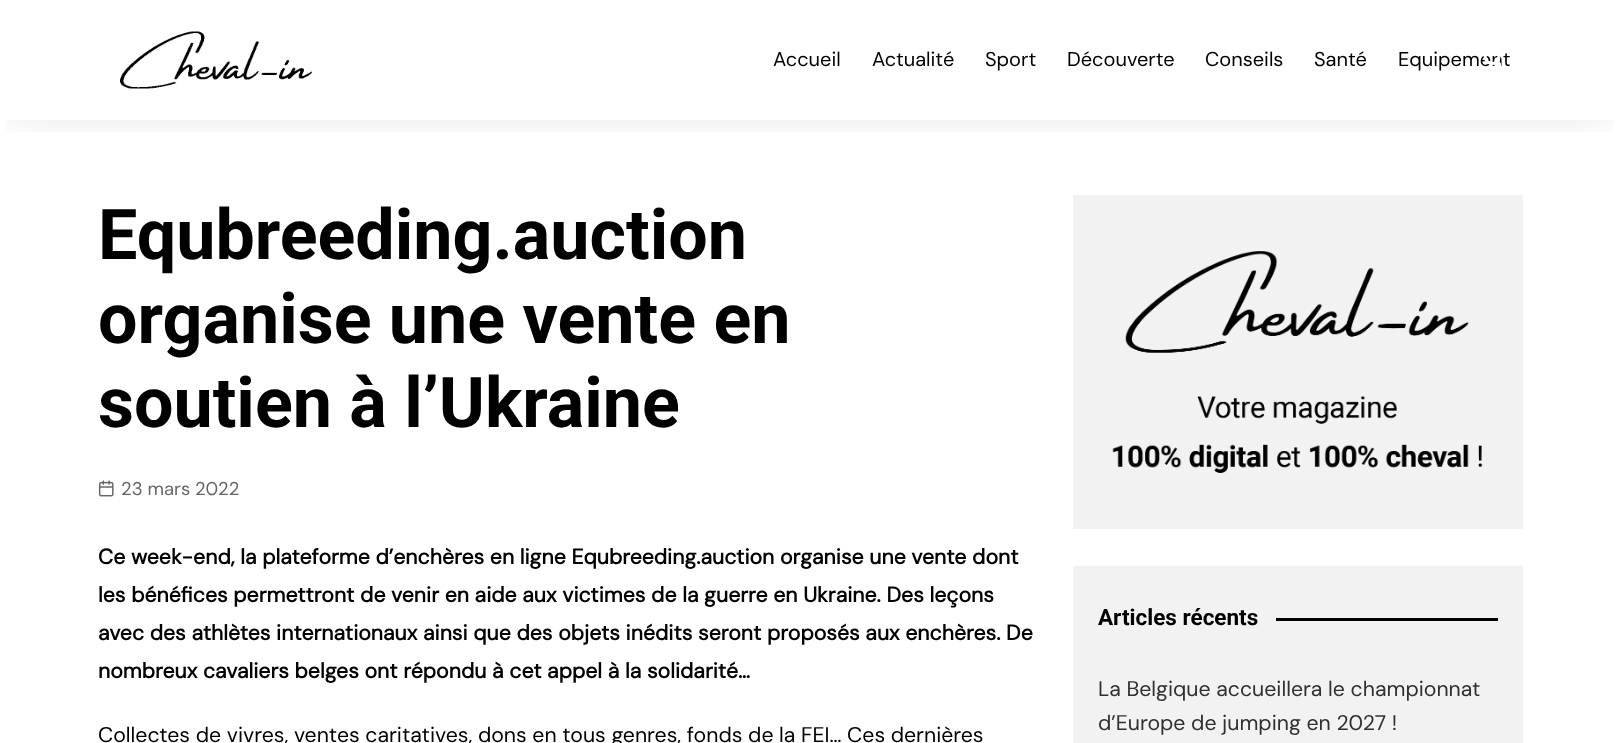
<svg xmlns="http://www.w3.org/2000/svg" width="1620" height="743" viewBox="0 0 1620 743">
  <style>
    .t1 { font: 20px DM Sans; fill: #010101; }
    .t2 { font: bold 70px Roboto; fill: #010101; }
    .t3 { font: 18.5px DM Sans; fill: #666; }
    .t4 { font: bold 21.25px DM Sans; fill: #010101; }
    .t5 { font: 21.25px DM Sans; fill: #010101; }
    .t6 { font: bold 22.5px Roboto; fill: #010101; }
    .t7 { font: 21.25px DM Sans; fill: #303030; }
  </style>
  <defs>
    <clipPath id="clip1"><rect x="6" y="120" width="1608" height="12"/></clipPath>
  </defs>
  <rect width="100%" height="100%" fill="#fff"/>
  <g clip-path="url(#clip1)">
    <rect x="6" y="9" width="1608" height="107" fill="#0000001a" filter="blur(19px)"/>
  </g>
  <image x="120" y="31" width="192" height="58" href="images/1.png"/>
  <text x="773" y="66" class="t1">Accueil</text>
  <text x="872" y="66" class="t1">Actualité</text>
  <text x="985" y="66" class="t1">Sport</text>
  <text x="1067" y="66" class="t1">Découverte</text>
  <text x="1205" y="66" class="t1">Conseils</text>
  <text x="1314" y="66" class="t1">Santé</text>
  <text x="1398" y="66" class="t1">Equipement</text>
  <image x="1483" y="55" width="18" height="11" href="images/2.png"/>
  <text x="98" y="259" class="t2">Equbreeding.auction</text>
  <text x="98" y="343" class="t2">organise une vente en</text>
  <text x="98" y="427" class="t2">soutien à l’Ukraine</text>
  <image x="98" y="480" width="16" height="17" href="images/3.png"/>
  <text x="121" y="495" class="t3">23 mars 2022</text>
  <text x="98" y="564" class="t4">Ce week-end, la plateforme d’enchères en ligne Equbreeding.auction organise une vente dont</text>
  <text x="98" y="602" class="t4">les bénéfices permettront de venir en aide aux victimes de la guerre en Ukraine. Des leçons</text>
  <text x="98" y="640" class="t4">avec des athlètes internationaux ainsi que des objets inédits seront proposés aux enchères. De</text>
  <text x="98" y="678" class="t4">nombreux cavaliers belges ont répondu à cet appel à la solidarité…</text>
  <text x="98" y="742" class="t5">Collectes de vivres, ventes caritatives, dons en tous genres, fonds de la FEI… Ces dernières</text>
  <rect x="1073" y="195" width="450" height="334" fill="#f2f2f2"/>
  <image x="1112" y="251" width="371" height="222" href="images/4.png"/>
  <rect x="1073" y="566" width="450" height="177" fill="#f2f2f2"/>
  <text x="1098" y="625" class="t6">Articles récents</text>
  <rect x="1276" y="618" width="222" height="3" fill="#010101"/>
  <text x="1098" y="696" class="t7">La Belgique accueillera le championnat</text>
  <text x="1098" y="730" class="t7">d’Europe de jumping en 2027 !</text>
</svg>
